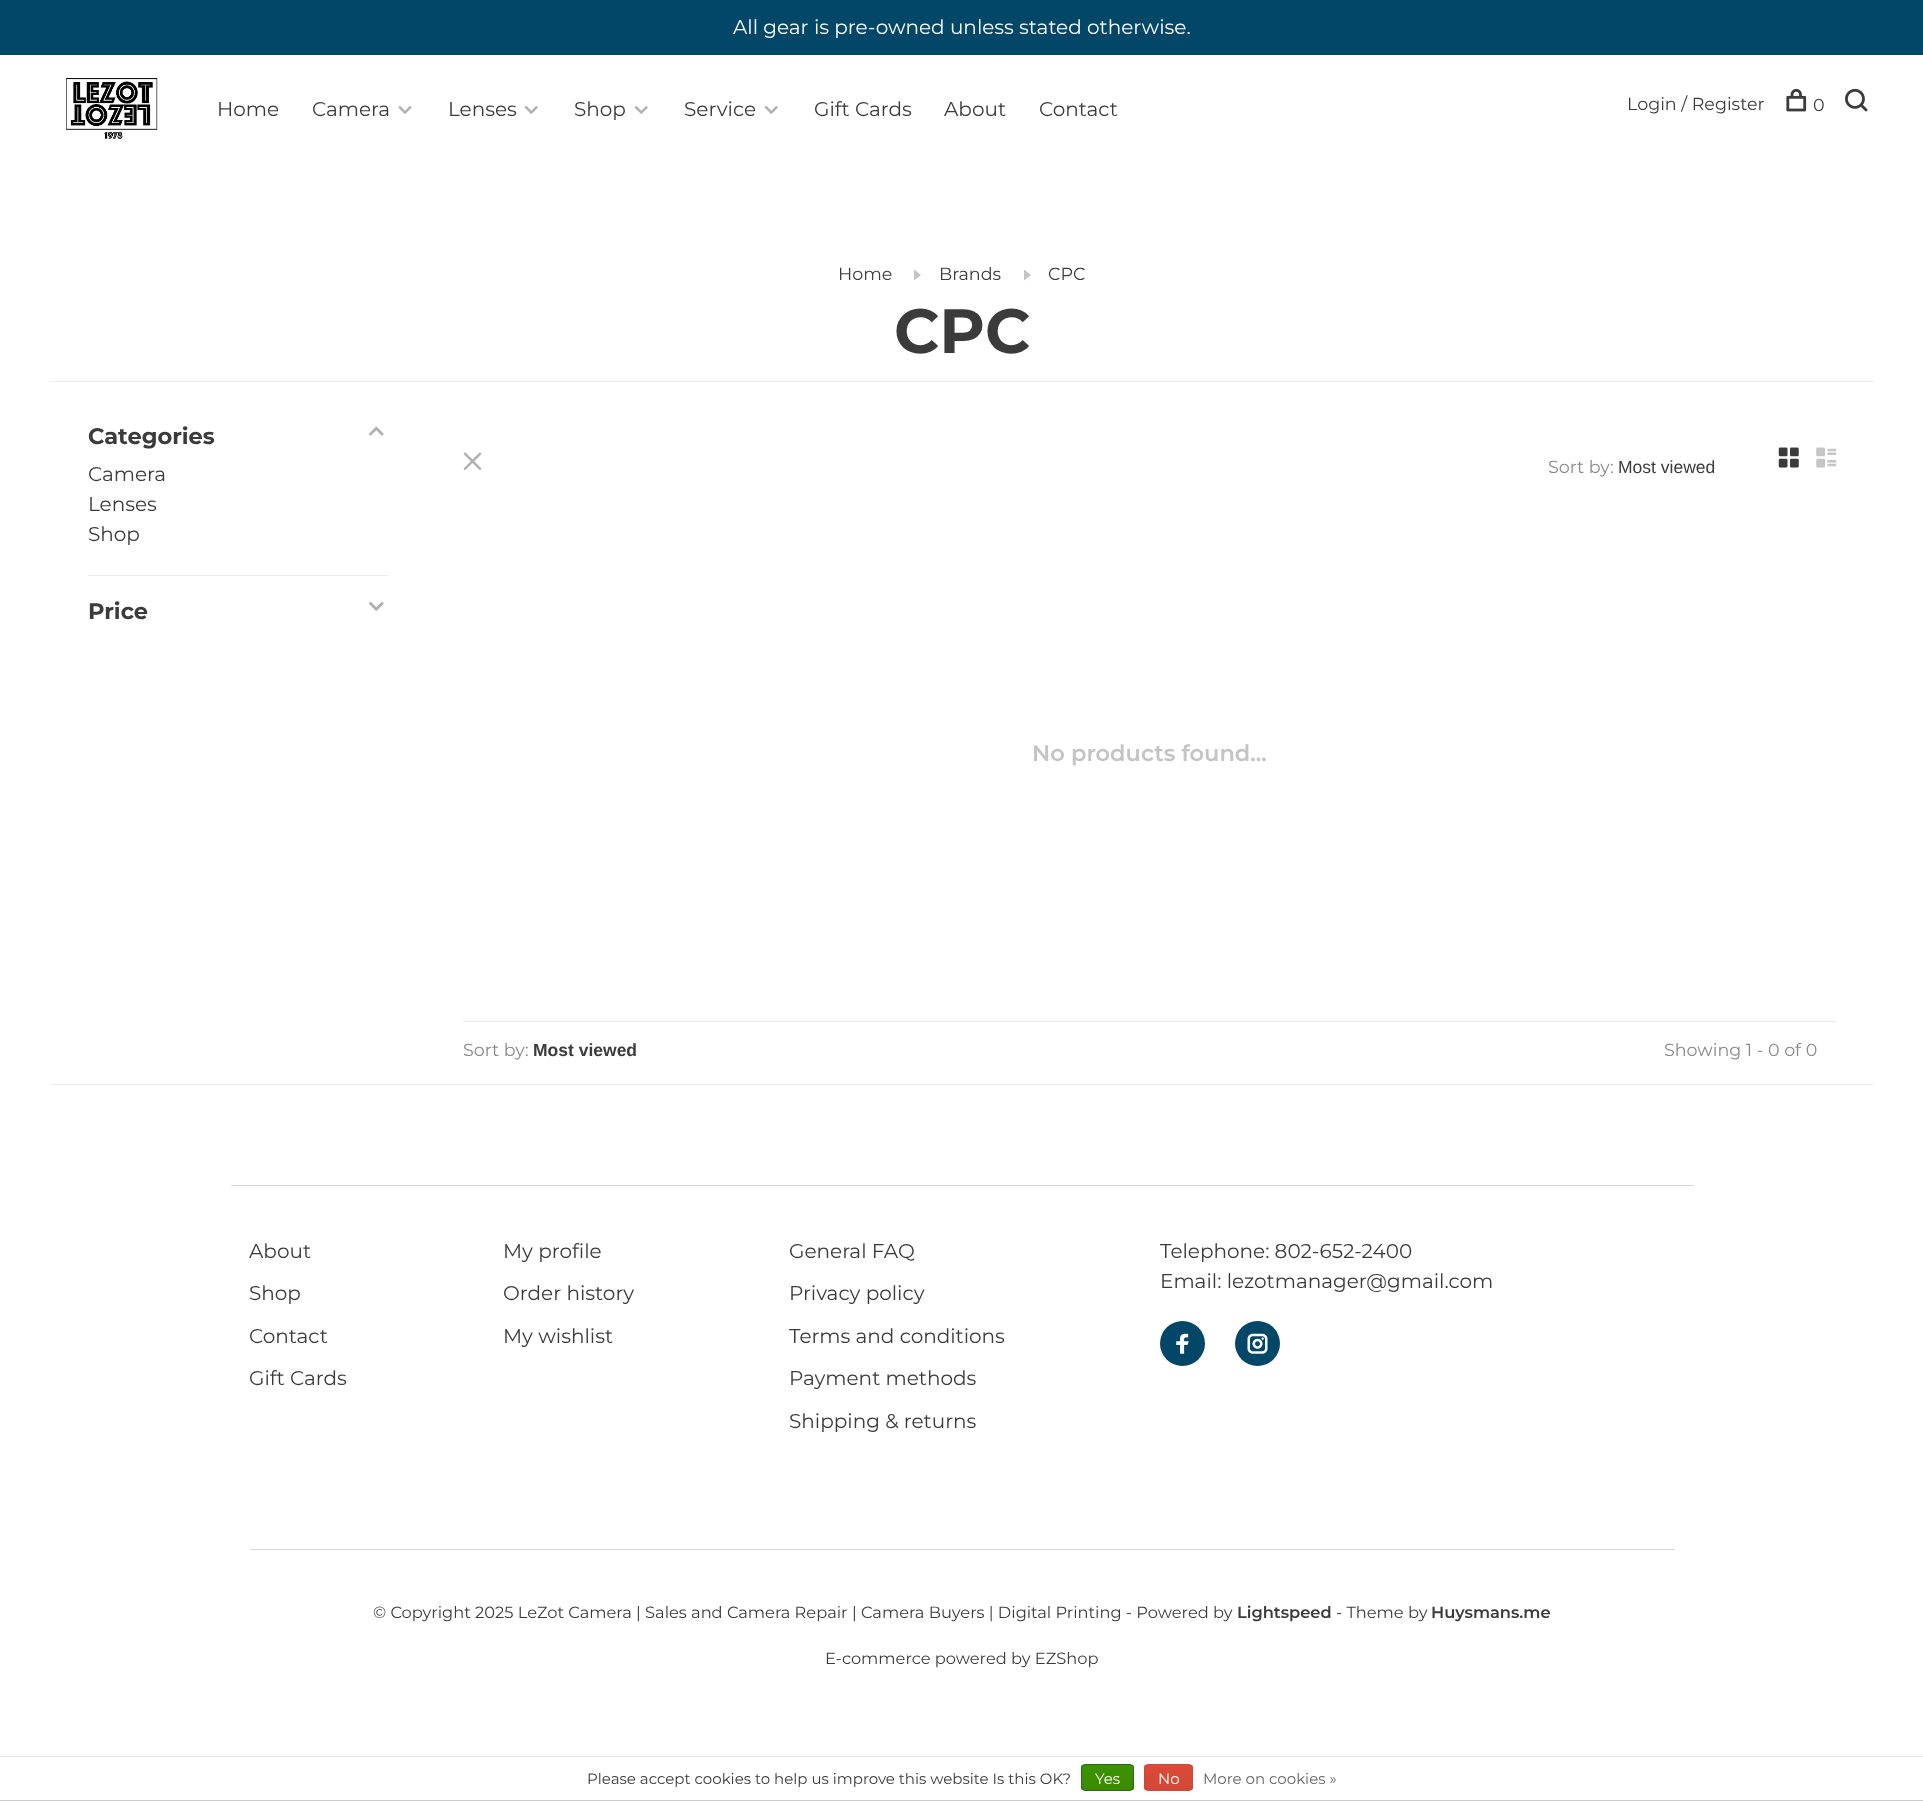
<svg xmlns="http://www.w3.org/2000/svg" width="1923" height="1801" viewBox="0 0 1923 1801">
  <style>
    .t1 { font: 20px Montserrat; fill: #fff; }
    .t2 { font: 20px Montserrat; fill: #3b3b3b; }
    .t3 { font: 17.5px Montserrat; fill: #3b3b3b; }
    .t4 { font: bold 62.5px Montserrat; fill: #3b3b3b; }
    .t5 { font: bold 22.5px Montserrat; fill: #3b3b3b; }
    .t6 { font: 17.5px Montserrat; fill: #898989; }
    .t7 { font: 17.5px Liberation Sans; fill: #3b3b3b; }
    .t8 { font: 600 22.5px Montserrat; fill: #c4c4c4; }
    .t9 { font: bold 17.5px Liberation Sans; fill: #3b3b3b; }
    .t10 { font: 16.25px Montserrat; fill: #3b3b3b; }
    .t11 { font: 600 16.25px Montserrat; fill: #3b3b3b; }
    .t12 { font: 15px Montserrat; fill: #3b3b3b; }
    .t13 { font: 15px Montserrat; fill: #fff; }
    .t14 { font: 15px Montserrat; fill: #666; }
  </style>
  <defs>
    <clipPath id="clip1"><rect x="1081" y="1764" width="53" height="27" rx="4"/></clipPath>
    <linearGradient id="g1" gradientUnits="userSpaceOnUse" x1="1108" y1="1765" x2="1108" y2="1790"><stop offset="0" stop-color="#3c9300"/><stop offset="1" stop-color="#398a00"/></linearGradient>
    <clipPath id="clip2"><rect x="1144" y="1764" width="49" height="27" rx="4"/></clipPath>
    <linearGradient id="g2" gradientUnits="userSpaceOnUse" x1="1168" y1="1765" x2="1168" y2="1790"><stop offset="0" stop-color="#dc4a38"/><stop offset="1" stop-color="#d14836"/></linearGradient>
  </defs>
  <rect width="100%" height="100%" fill="#fff"/>
  <rect x="0" y="0" width="1923" height="55" fill="#024668"/>
  <text x="733" y="34" class="t1">All gear is pre-owned unless stated otherwise.</text>
  <image x="66" y="78" width="92" height="61" href="images/1.png"/>
  <text x="217" y="116" class="t2">Home</text>
  <text x="312" y="116" class="t2">Camera</text>
  <image x="398" y="106" width="14" height="8" href="images/2.png"/>
  <text x="448" y="116" class="t2">Lenses</text>
  <image x="524" y="105" width="14" height="10" href="images/3.png"/>
  <text x="574" y="116" class="t2">Shop</text>
  <image x="634" y="105" width="14" height="10" href="images/3.png"/>
  <text x="684" y="116" class="t2">Service</text>
  <image x="764" y="105" width="14" height="10" href="images/3.png"/>
  <text x="814" y="116" class="t2">Gift Cards</text>
  <text x="944" y="116" class="t2">About</text>
  <text x="1039" y="116" class="t2">Contact</text>
  <text x="1627" y="110" class="t3">Login / Register</text>
  <image x="1786" y="88" width="21" height="24" href="images/4.png"/>
  <text x="1813" y="111" class="t3">0</text>
  <image x="1845" y="88" width="23" height="24" href="images/5.png"/>
  <text x="838" y="280" class="t3">Home</text>
  <path d="M914 280.5L921 275L914 269.5Z" fill="#c4c4c4"/>
  <text x="939" y="280" class="t3">Brands</text>
  <path d="M1024 280.5L1031 275L1024 269.5Z" fill="#c4c4c4"/>
  <text x="1048" y="280" class="t3">CPC</text>
  <text x="894" y="353" class="t4">CPC</text>
  <rect x="50" y="381" width="1824" height="1" fill="#ebebeb"/>
  <rect x="50" y="1084" width="1824" height="1" fill="#ebebeb"/>
  <rect x="88" y="575" width="300" height="1" fill="#ebebeb"/>
  <text x="88" y="444" class="t5">Categories</text>
  <image x="368" y="426" width="16" height="10" href="images/6.png"/>
  <text x="88" y="481" class="t2">Camera</text>
  <text x="88" y="511" class="t2">Lenses</text>
  <text x="88" y="541" class="t2">Shop</text>
  <text x="88" y="619" class="t5">Price</text>
  <image x="368" y="601" width="16" height="10" href="images/7.png"/>
  <image x="463" y="452" width="19" height="18" href="images/8.png"/>
  <text x="1548" y="473" class="t6">Sort by:</text>
  <text x="1618" y="473" class="t7">Most viewed</text>
  <image x="1778" y="447" width="21" height="21" href="images/9.png"/>
  <image x="1816" y="447" width="21" height="21" href="images/10.png"/>
  <text x="1032" y="761" class="t8">No products found...</text>
  <rect x="463" y="1021" width="1373" height="1" fill="#ebebeb"/>
  <text x="463" y="1056" class="t6">Sort by:</text>
  <text x="533" y="1056" class="t9">Most viewed</text>
  <text x="1664" y="1056" class="t6">Showing 1 - 0 of 0</text>
  <rect x="231" y="1185" width="1463" height="1" fill="#d7d7d7"/>
  <text x="249" y="1258" class="t2">About</text>
  <text x="249" y="1300" class="t2">Shop</text>
  <text x="249" y="1343" class="t2">Contact</text>
  <text x="249" y="1385" class="t2">Gift Cards</text>
  <text x="503" y="1258" class="t2">My profile</text>
  <text x="503" y="1300" class="t2">Order history</text>
  <text x="503" y="1343" class="t2">My wishlist</text>
  <text x="789" y="1258" class="t2">General FAQ</text>
  <text x="789" y="1300" class="t2">Privacy policy</text>
  <text x="789" y="1343" class="t2">Terms and conditions</text>
  <text x="789" y="1385" class="t2">Payment methods</text>
  <text x="789" y="1428" class="t2">Shipping &amp; returns</text>
  <text x="1160" y="1258" class="t2">Telephone: 802-652-2400</text>
  <text x="1160" y="1288" class="t2">Email: lezotmanager@gmail.com</text>
  <circle cx="1182.5" cy="1343.5" r="22.5" fill="#024668"/>
  <image x="1176" y="1333" width="13" height="21" href="images/11.png"/>
  <circle cx="1257.5" cy="1343.5" r="22.5" fill="#024668"/>
  <image x="1247" y="1333" width="21" height="21" href="images/12.png"/>
  <rect x="250" y="1549" width="1425" height="1" fill="#d7d7d7"/>
  <text x="373" y="1618" class="t10">© Copyright 2025 LeZot Camera | Sales and Camera Repair | Camera Buyers | Digital Printing - Powered by</text>
  <text x="1237" y="1618" class="t11">Lightspeed</text>
  <text x="1336" y="1618" class="t10">- Theme by</text>
  <text x="1431" y="1618" class="t11">Huysmans.me</text>
  <text x="825" y="1664" class="t10">E-commerce powered by EZShop</text>
  <rect x="0" y="1756" width="1923" height="1" fill="#e6e6e6"/>
  <rect x="0" y="1800" width="1923" height="1" fill="#ccc"/>
  <text x="587" y="1784" class="t12">Please accept cookies to help us improve this website Is this OK?</text>
  <g clip-path="url(#clip1)">
    <rect x="1081" y="1765" width="53" height="25" fill="url(#g1)"/>
  </g>
  <rect x="1081.5" y="1764.5" width="52" height="26" rx="3.5" fill="none" stroke="#29691d"/>
  <text x="1095" y="1784" class="t13">Yes</text>
  <g clip-path="url(#clip2)">
    <rect x="1144" y="1765" width="49" height="25" fill="url(#g2)"/>
  </g>
  <rect x="1144.5" y="1764.5" width="48" height="26" rx="3.5" fill="none" stroke="#d14836"/>
  <text x="1158" y="1784" class="t13">No</text>
  <text x="1203" y="1784" class="t14">More on cookies »</text>
</svg>
